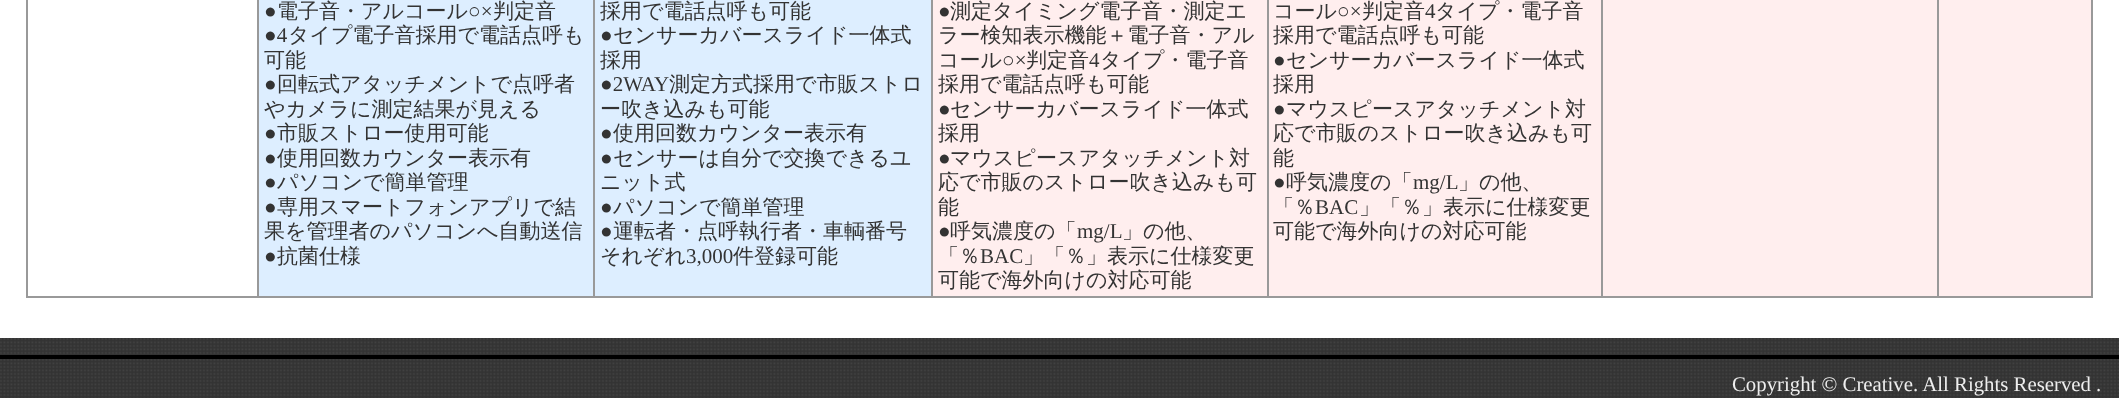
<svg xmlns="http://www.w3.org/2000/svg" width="2119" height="398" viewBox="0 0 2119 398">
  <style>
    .t1 { font: 21px Liberation Serif; fill: #333; }
    .t2 { font: 500 21px WenQuanYi Zen Hei; fill: #333; }
    .t3 { font: 20.8px Liberation Serif; fill: #eee; }
  </style>
  <rect width="100%" height="100%" fill="#fff"/>
  <image x="0" y="338" width="2119" height="60" href="images/1.png"/>
  <rect x="2091" y="0" width="2" height="298" fill="#999"/>
  <rect x="1937" y="296" width="156" height="2" fill="#999"/>
  <rect x="1937" y="0" width="2" height="298" fill="#999"/>
  <rect x="1601" y="296" width="338" height="2" fill="#999"/>
  <rect x="1601" y="0" width="2" height="298" fill="#999"/>
  <rect x="1267" y="296" width="336" height="2" fill="#999"/>
  <rect x="1267" y="0" width="2" height="298" fill="#999"/>
  <rect x="931" y="296" width="338" height="2" fill="#999"/>
  <rect x="931" y="0" width="2" height="298" fill="#999"/>
  <rect x="593" y="296" width="340" height="2" fill="#999"/>
  <rect x="593" y="0" width="2" height="298" fill="#999"/>
  <rect x="257" y="296" width="338" height="2" fill="#999"/>
  <rect x="257" y="0" width="2" height="298" fill="#999"/>
  <rect x="26" y="296" width="233" height="2" fill="#999"/>
  <rect x="26" y="0" width="2" height="298" fill="#999"/>
  <rect x="259" y="0" width="334" height="296" fill="#def"/>
  <text x="264" y="18" class="t1">●</text>
  <text x="277" y="18" class="t2">電子音・アルコール</text>
  <text x="468" y="18" class="t1">○×</text>
  <text x="493" y="18" class="t2">判定音</text>
  <text x="264" y="42" class="t1">●4</text>
  <text x="288" y="42" class="t2">タイプ電子音採用で電話点呼も</text>
  <text x="264" y="67" class="t2">可能</text>
  <text x="264" y="91" class="t1">●</text>
  <text x="277" y="91" class="t2">回転式アタッチメントで点呼者</text>
  <text x="264" y="116" class="t2">やカメラに測定結果が見える</text>
  <text x="264" y="140" class="t1">●</text>
  <text x="277" y="140" class="t2">市販ストロー使用可能</text>
  <text x="264" y="165" class="t1">●</text>
  <text x="277" y="165" class="t2">使用回数カウンター表示有</text>
  <text x="264" y="189" class="t1">●</text>
  <text x="277" y="189" class="t2">パソコンで簡単管理</text>
  <text x="264" y="214" class="t1">●</text>
  <text x="277" y="214" class="t2">専用スマートフォンアプリで結</text>
  <text x="264" y="238" class="t2">果を管理者のパソコンへ自動送信</text>
  <text x="264" y="263" class="t1">●</text>
  <text x="277" y="263" class="t2">抗菌仕様</text>
  <rect x="595" y="0" width="336" height="296" fill="#def"/>
  <text x="600" y="18" class="t2">採用で電話点呼も可能</text>
  <text x="600" y="42" class="t1">●</text>
  <text x="613" y="42" class="t2">センサーカバースライド一体式</text>
  <text x="600" y="67" class="t2">採用</text>
  <text x="600" y="91" class="t1">●2WAY</text>
  <text x="669" y="91" class="t2">測定方式採用で市販ストロ</text>
  <text x="600" y="116" class="t2">ー吹き込みも可能</text>
  <text x="600" y="140" class="t1">●</text>
  <text x="613" y="140" class="t2">使用回数カウンター表示有</text>
  <text x="600" y="165" class="t1">●</text>
  <text x="613" y="165" class="t2">センサーは自分で交換できるユ</text>
  <text x="600" y="189" class="t2">ニット式</text>
  <text x="600" y="214" class="t1">●</text>
  <text x="613" y="214" class="t2">パソコンで簡単管理</text>
  <text x="600" y="238" class="t1">●</text>
  <text x="613" y="238" class="t2">運転者・点呼執行者・車輌番号</text>
  <text x="600" y="263" class="t2">それぞれ</text>
  <text x="686" y="263" class="t1">3,000</text>
  <text x="733" y="263" class="t2">件登録可能</text>
  <rect x="933" y="0" width="334" height="296" fill="#fee"/>
  <text x="938" y="18" class="t1">●</text>
  <text x="950" y="18" class="t2">測定タイミング電子音・測定エ</text>
  <text x="938" y="42" class="t2">ラー検知表示機能＋電子音・アル</text>
  <text x="938" y="67" class="t2">コール</text>
  <text x="1002" y="67" class="t1">○×</text>
  <text x="1026" y="67" class="t2">判定音</text>
  <text x="1089" y="67" class="t1">4</text>
  <text x="1100" y="67" class="t2">タイプ・電子音</text>
  <text x="938" y="91" class="t2">採用で電話点呼も可能</text>
  <text x="938" y="116" class="t1">●</text>
  <text x="950" y="116" class="t2">センサーカバースライド一体式</text>
  <text x="938" y="140" class="t2">採用</text>
  <text x="938" y="165" class="t1">●</text>
  <text x="950" y="165" class="t2">マウスピースアタッチメント対</text>
  <text x="938" y="189" class="t2">応で市販のストロー吹き込みも可</text>
  <text x="938" y="214" class="t2">能</text>
  <text x="938" y="238" class="t1">●</text>
  <text x="950" y="238" class="t2">呼気濃度の「</text>
  <text x="1077" y="238" class="t1">mg/L</text>
  <text x="1122" y="238" class="t2">」の他、</text>
  <text x="938" y="263" class="t2">「％</text>
  <text x="980" y="263" class="t1">BAC</text>
  <text x="1023" y="263" class="t2">」「％」表示に仕様変更</text>
  <text x="938" y="287" class="t2">可能で海外向けの対応可能</text>
  <rect x="1269" y="0" width="332" height="296" fill="#fee"/>
  <text x="1273" y="18" class="t2">コール</text>
  <text x="1337" y="18" class="t1">○×</text>
  <text x="1362" y="18" class="t2">判定音</text>
  <text x="1425" y="18" class="t1">4</text>
  <text x="1435" y="18" class="t2">タイプ・電子音</text>
  <text x="1273" y="42" class="t2">採用で電話点呼も可能</text>
  <text x="1273" y="67" class="t1">●</text>
  <text x="1286" y="67" class="t2">センサーカバースライド一体式</text>
  <text x="1273" y="91" class="t2">採用</text>
  <text x="1273" y="116" class="t1">●</text>
  <text x="1286" y="116" class="t2">マウスピースアタッチメント対</text>
  <text x="1273" y="140" class="t2">応で市販のストロー吹き込みも可</text>
  <text x="1273" y="165" class="t2">能</text>
  <text x="1273" y="189" class="t1">●</text>
  <text x="1286" y="189" class="t2">呼気濃度の「</text>
  <text x="1413" y="189" class="t1">mg/L</text>
  <text x="1458" y="189" class="t2">」の他、</text>
  <text x="1273" y="214" class="t2">「％</text>
  <text x="1315" y="214" class="t1">BAC</text>
  <text x="1359" y="214" class="t2">」「％」表示に仕様変更</text>
  <text x="1273" y="238" class="t2">可能で海外向けの対応可能</text>
  <rect x="1603" y="0" width="334" height="296" fill="#fee"/>
  <rect x="1939" y="0" width="152" height="296" fill="#fee"/>
  <rect x="0" y="355" width="2119" height="4" fill="#000"/>
  <text x="1732" y="391" class="t3">Copyright © Creative. All Rights Reserved .</text>
</svg>
